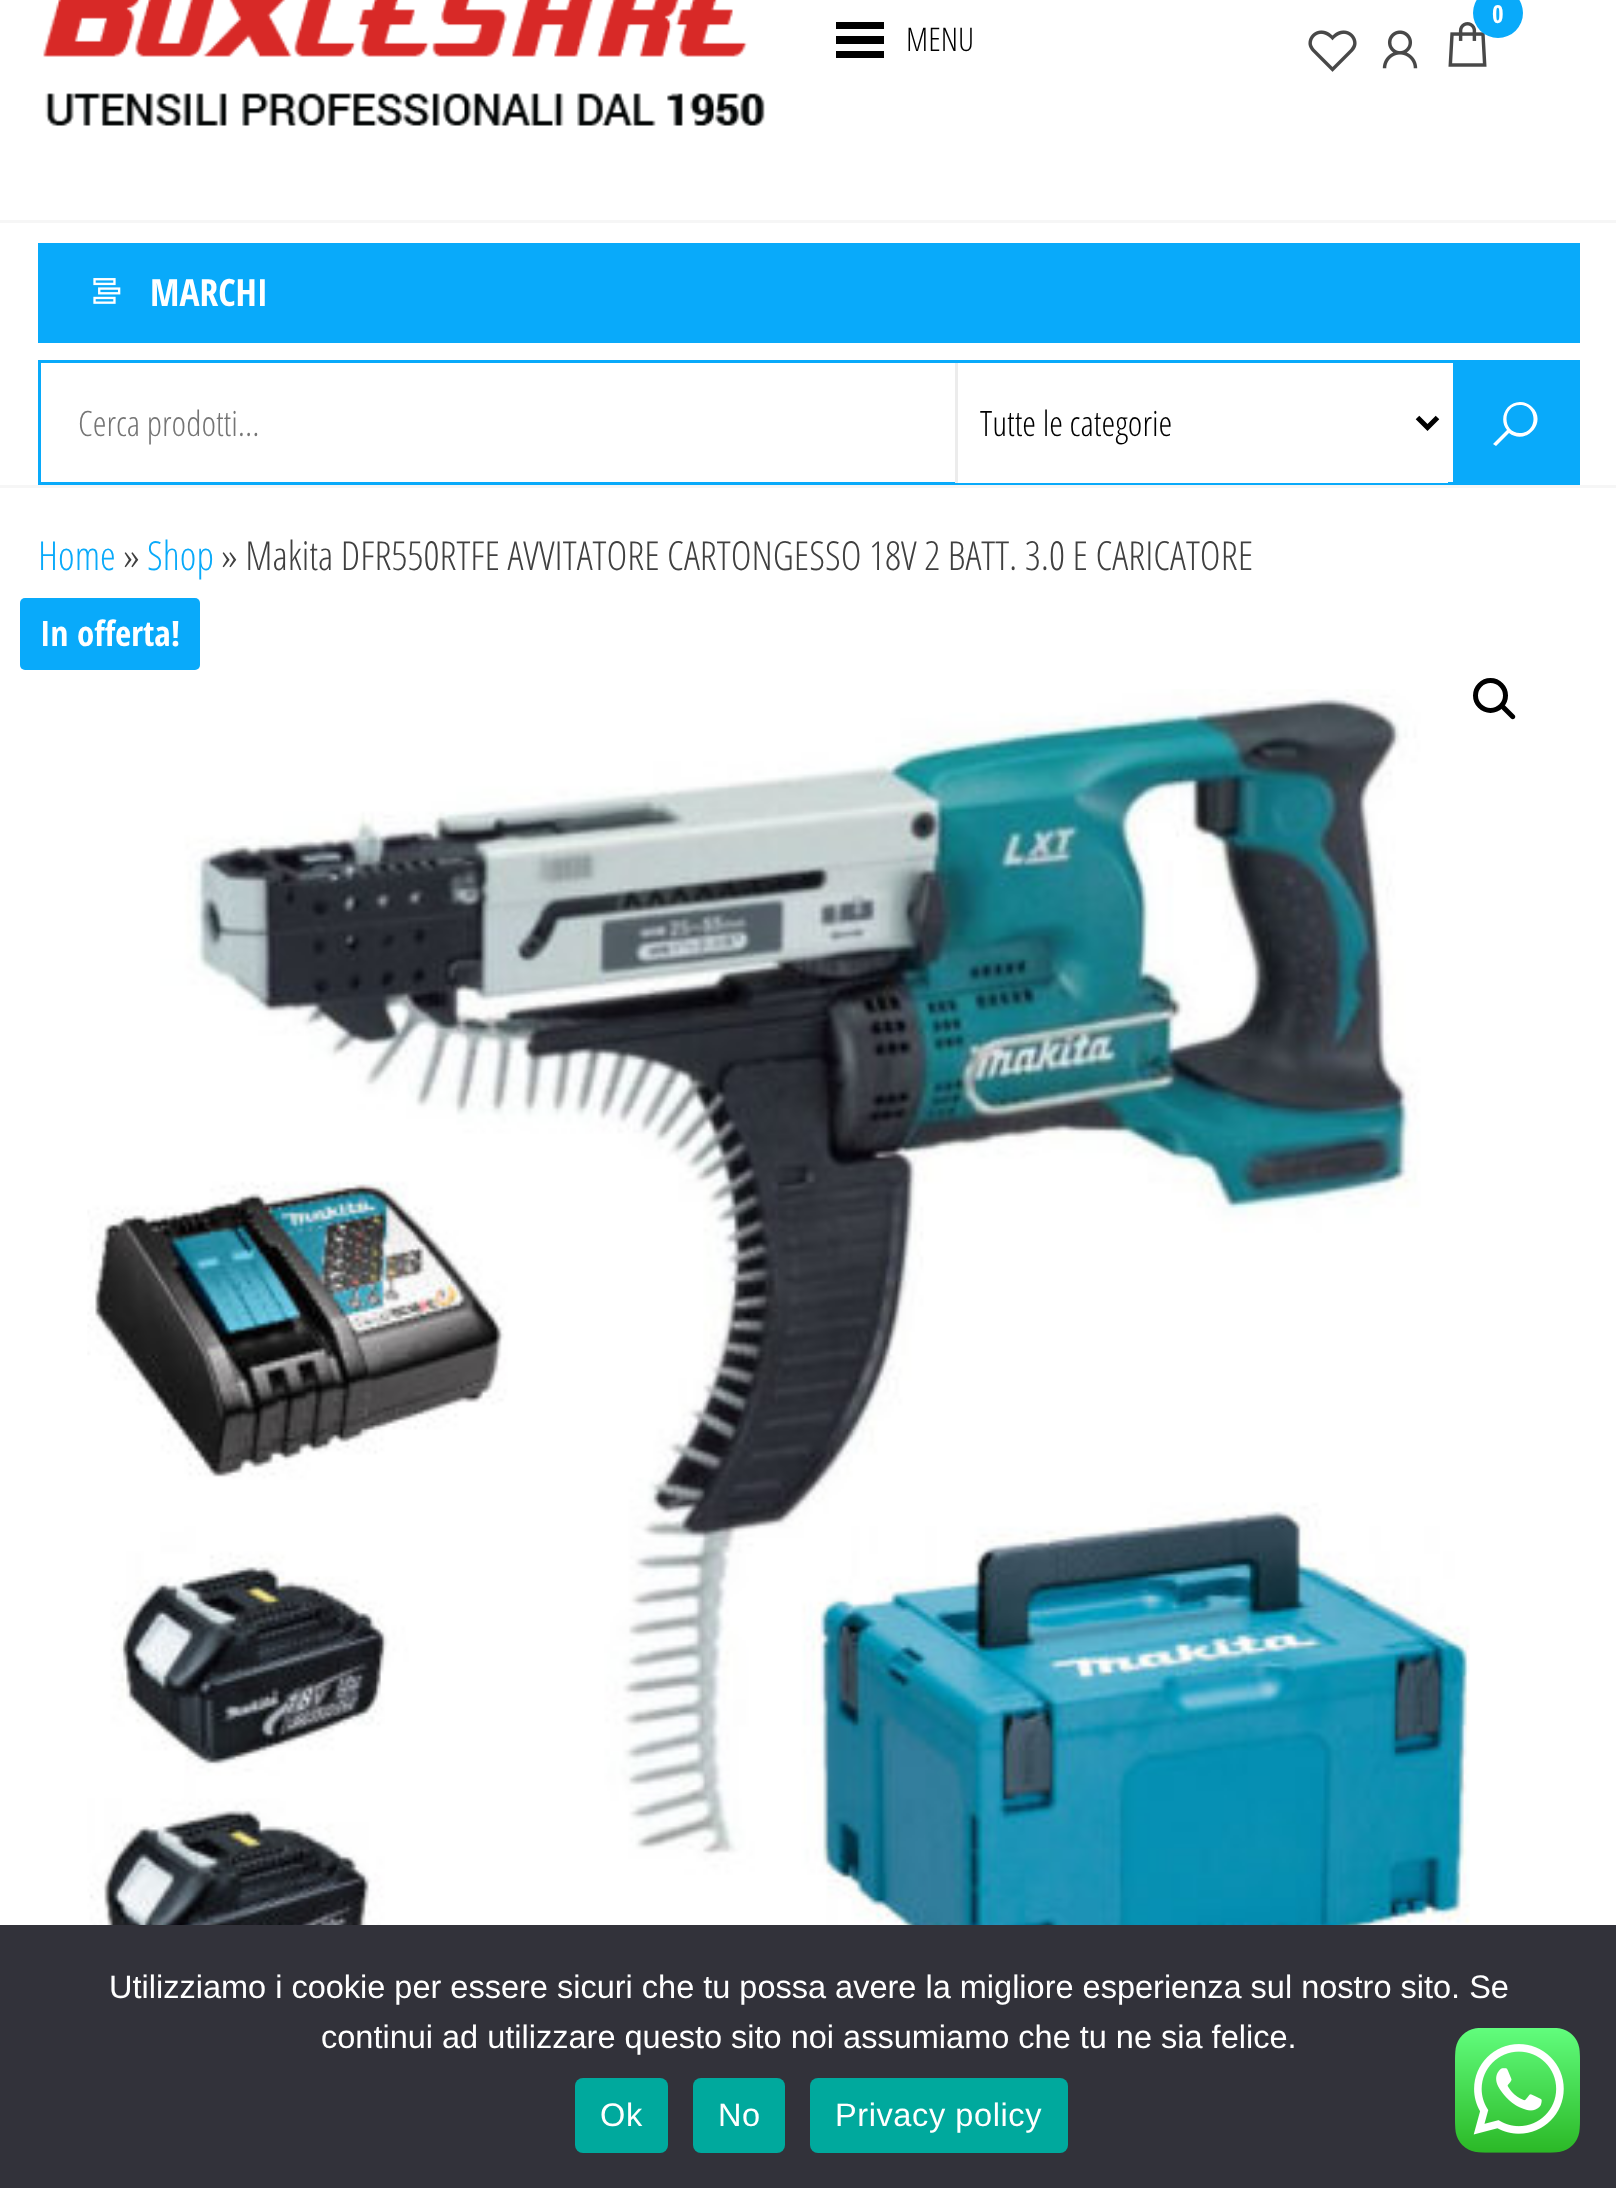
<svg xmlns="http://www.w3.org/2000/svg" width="1616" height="2188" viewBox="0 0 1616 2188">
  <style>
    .t1 { font: bold 25px Open Sans Condensed; fill: #fff; }
    .t2 { font: 300 32.5px Open Sans Condensed; fill: #000; }
    .t3 { font: bold 37.5px Open Sans Condensed; fill: #fff; }
    .t4 { font: 300 35px Open Sans Condensed; fill: #757575; }
    .t5 { font: 300 35px Open Sans Condensed; fill: #000; }
    .t6 { font: 300 40px Open Sans Condensed; fill: #09aafa; }
    .t7 { font: 300 40px Open Sans Condensed; fill: #404040; }
    .t8 { font: bold 35px Open Sans Condensed; fill: #fff; }
    .t9 { font: 32.5px Liberation Sans; fill: #fff; }
    .t10 { font: 32.5px Liberation Sans; letter-spacing: 0.6px; fill: #fff; }
  </style>
  <rect width="100%" height="100%" fill="#fff"/>
  <rect x="0" y="220" width="1616" height="3" fill="#f6f6f6"/>
  <image x="43" y="0" width="722" height="126" href="images/1.png"/>
  <image x="1448" y="22" width="39" height="45" href="images/2.png"/>
  <circle cx="1498" cy="13" r="25" fill="#09aafa"/>
  <text x="1492" y="23" class="t1">0</text>
  <image x="1308" y="30" width="49" height="42" href="images/3.png"/>
  <image x="1382" y="30" width="36" height="39" href="images/4.png"/>
  <path d="M836 58H884V51H836ZM836 22V29H884V22ZM836 44H884V36H836Z" fill="#000"/>
  <text x="906" y="51" class="t2">MENU</text>
  <rect x="0" y="485" width="1616" height="3" fill="#f6f6f6"/>
  <rect x="38" y="243" width="1542" height="100" fill="#09aafa"/>
  <image x="93" y="278" width="28" height="26" href="images/5.png"/>
  <text x="150" y="306" class="t3">MARCHI</text>
  <rect x="39.5" y="361.5" width="1539" height="122" fill="none" stroke="#09aafa" stroke-width="3"/>
  <text x="78" y="436" class="t4">Cerca prodotti...</text>
  <rect x="958" y="482" width="490" height="1" fill="#fff"/>
  <rect x="955" y="363" width="3" height="120" fill="#ececec"/>
  <path d="M1417.5 417.5L1427.5 427.5L1437.5 417.5" fill="none" stroke="#000" stroke-width="5"/>
  <text x="980" y="436" class="t5">Tutte le categorie</text>
  <rect x="1453" y="363" width="124" height="119" fill="#09aafa"/>
  <path d="M1520 402C1506 402 1498 419 1507 430L1493 444L1496 446L1509 433C1526 446 1548 422 1532 407C1529 404 1525 402 1520 402ZM1520 405C1538 405 1538 433 1520 433C1502 433 1502 405 1520 405Z" fill="#fff"/>
  <text x="38" y="570" class="t6">Home</text>
  <text x="123" y="570" class="t7">»</text>
  <text x="147" y="570" class="t6">Shop</text>
  <text x="221" y="570" class="t7">» Makita DFR550RTFE AVVITATORE CARTONGESSO 18V 2 BATT. 3.0 E CARICATORE</text>
  <rect x="20" y="598" width="180" height="72" rx="5" fill="#09aafa"/>
  <text x="40" y="646" class="t8">In offerta!</text>
  <image x="87" y="689" width="1383" height="1236" href="images/6.png"/>
  <circle cx="1490.5" cy="695.5" r="15" fill="none" stroke="#000" stroke-width="5"/>
  <path d="M1500.5 704.5C1501.5 703.5 1503 703.5 1504 704.5L1514.5 715C1515.5 716 1515.5 717.5 1514.5 718.5C1513.5 719.5 1512 719.5 1511 718.5L1500.5 708C1499.5 707 1499.5 705.5 1500.5 704.5Z" fill="#000"/>
  <rect x="0" y="1925" width="1616" height="263" fill="#32323a"/>
  <text x="109" y="1998" class="t9">Utilizziamo i cookie per essere sicuri che tu possa avere la migliore esperienza sul nostro sito. Se</text>
  <text x="321" y="2048" class="t9">continui ad utilizzare questo sito noi assumiamo che tu ne sia felice.</text>
  <rect x="575" y="2078" width="93" height="75" rx="8" fill="#00a99d"/>
  <text x="600" y="2126" class="t10">Ok</text>
  <rect x="693" y="2078" width="92" height="75" rx="8" fill="#00a99d"/>
  <text x="718" y="2126" class="t10">No</text>
  <rect x="810" y="2078" width="258" height="75" rx="8" fill="#00a99d"/>
  <text x="835" y="2126" class="t10">Privacy policy</text>
  <image x="1455" y="2028" width="125" height="125" href="images/7.png"/>
</svg>
